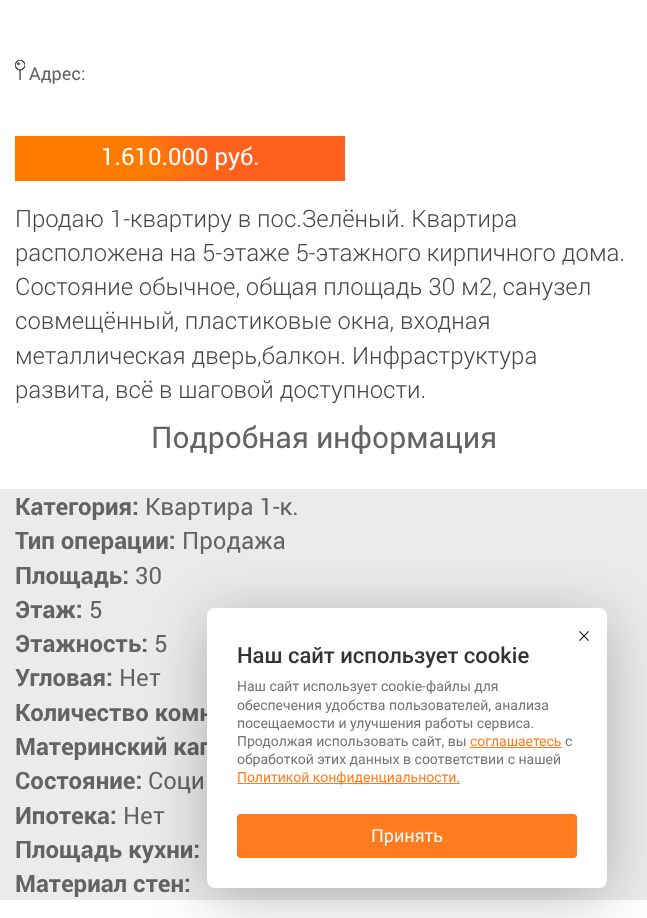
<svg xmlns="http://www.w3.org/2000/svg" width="647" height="918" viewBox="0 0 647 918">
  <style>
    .t1 { font: 18px Roboto; fill: #636363; }
    .t2 { font: 24px Roboto; fill: #fff; }
    .t3 { font: 300 24px Roboto; fill: #464646; }
    .t4 { font: 30px Roboto; fill: #636363; }
    .t5 { font: bold 24px Roboto; fill: #636363; }
    .t6 { font: 24px Roboto; fill: #636363; }
    .t7 { font: 500 22px Roboto; fill: #333; }
    .t8 { font: 14px 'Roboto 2'; fill: #717376; }
    .t9 { font: 14px 'Roboto 2'; fill: #ff7b1d; }
    .t10 { font: 18px 'Roboto 2'; fill: #fff; }
  </style>
  <rect width="100%" height="100%" fill="#fff"/>
  <image x="15" y="60" width="10" height="20" href="images/1.png"/>
  <text x="29" y="80" class="t1">Адрес:</text>
  <image x="15" y="136" width="330" height="45" href="images/2.png"/>
  <text x="101" y="165" class="t2">1.610.000 руб.</text>
  <text x="15" y="227" class="t3">Продаю 1-квартиру в пос.Зелёный. Квартира</text>
  <text x="15" y="261" class="t3">расположена на 5-этаже 5-этажного кирпичного дома.</text>
  <text x="15" y="295" class="t3">Состояние обычное, общая площадь 30 м2, санузел</text>
  <text x="15" y="329" class="t3">совмещённый, пластиковые окна, входная</text>
  <text x="15" y="364" class="t3">металлическая дверь,балкон. Инфраструктура</text>
  <text x="15" y="398" class="t3">развита, всё в шаговой доступности.</text>
  <text x="151" y="448" class="t4">Подробная информация</text>
  <rect x="0" y="489" width="647" height="411" fill="#ebebeb"/>
  <text x="15" y="515" class="t5">Категория:</text>
  <text x="145" y="515" class="t6">Квартира 1-к.</text>
  <text x="15" y="549" class="t5">Тип операции:</text>
  <text x="182" y="549" class="t6">Продажа</text>
  <text x="15" y="584" class="t5">Площадь:</text>
  <text x="135" y="584" class="t6">30</text>
  <text x="15" y="618" class="t5">Этаж:</text>
  <text x="89" y="618" class="t6">5</text>
  <text x="15" y="652" class="t5">Этажность:</text>
  <text x="154" y="652" class="t6">5</text>
  <text x="15" y="686" class="t5">Угловая:</text>
  <text x="119" y="686" class="t6">Нет</text>
  <text x="15" y="721" class="t5">Количество комн</text>
  <text x="15" y="755" class="t5">Материнский кап</text>
  <text x="15" y="789" class="t5">Состояние:</text>
  <text x="148" y="789" class="t6">Соци</text>
  <text x="15" y="824" class="t5">Ипотека:</text>
  <text x="123" y="824" class="t6">Нет</text>
  <text x="15" y="858" class="t5">Площадь кухни:</text>
  <text x="15" y="892" class="t5">Материал стен:</text>
  <rect x="207" y="618" width="400" height="280" rx="8" fill="#00000040" filter="blur(30px)"/>
  <rect x="207" y="608" width="400" height="280" rx="8" fill="#fff"/>
  <image x="579" y="631" width="10" height="10" href="images/3.png"/>
  <text x="237" y="663" class="t7">Наш сайт использует cookie</text>
  <text x="237" y="691" class="t8">Наш сайт использует cookie-файлы для</text>
  <text x="237" y="710" class="t8">обеспечения удобства пользователей, анализа</text>
  <text x="237" y="728" class="t8">посещаемости и улучшения работы сервиса.</text>
  <text x="237" y="746" class="t8">Продолжая использовать сайт, вы</text>
  <text x="470" y="746" class="t9">соглашаетесь</text>
  <rect x="470" y="747" width="92" height="1" fill="#ff7b1d"/>
  <text x="565" y="746" class="t8">с</text>
  <text x="237" y="764" class="t8">обработкой этих данных в соответствии с нашей</text>
  <rect x="237" y="783" width="223" height="1" fill="#ff7b1d"/>
  <text x="237" y="782" class="t9">Политикой конфиденциальности.</text>
  <rect x="237" y="814" width="340" height="44" rx="4" fill="#ff7b1d"/>
  <text x="371" y="842" class="t10">Принять</text>
</svg>
